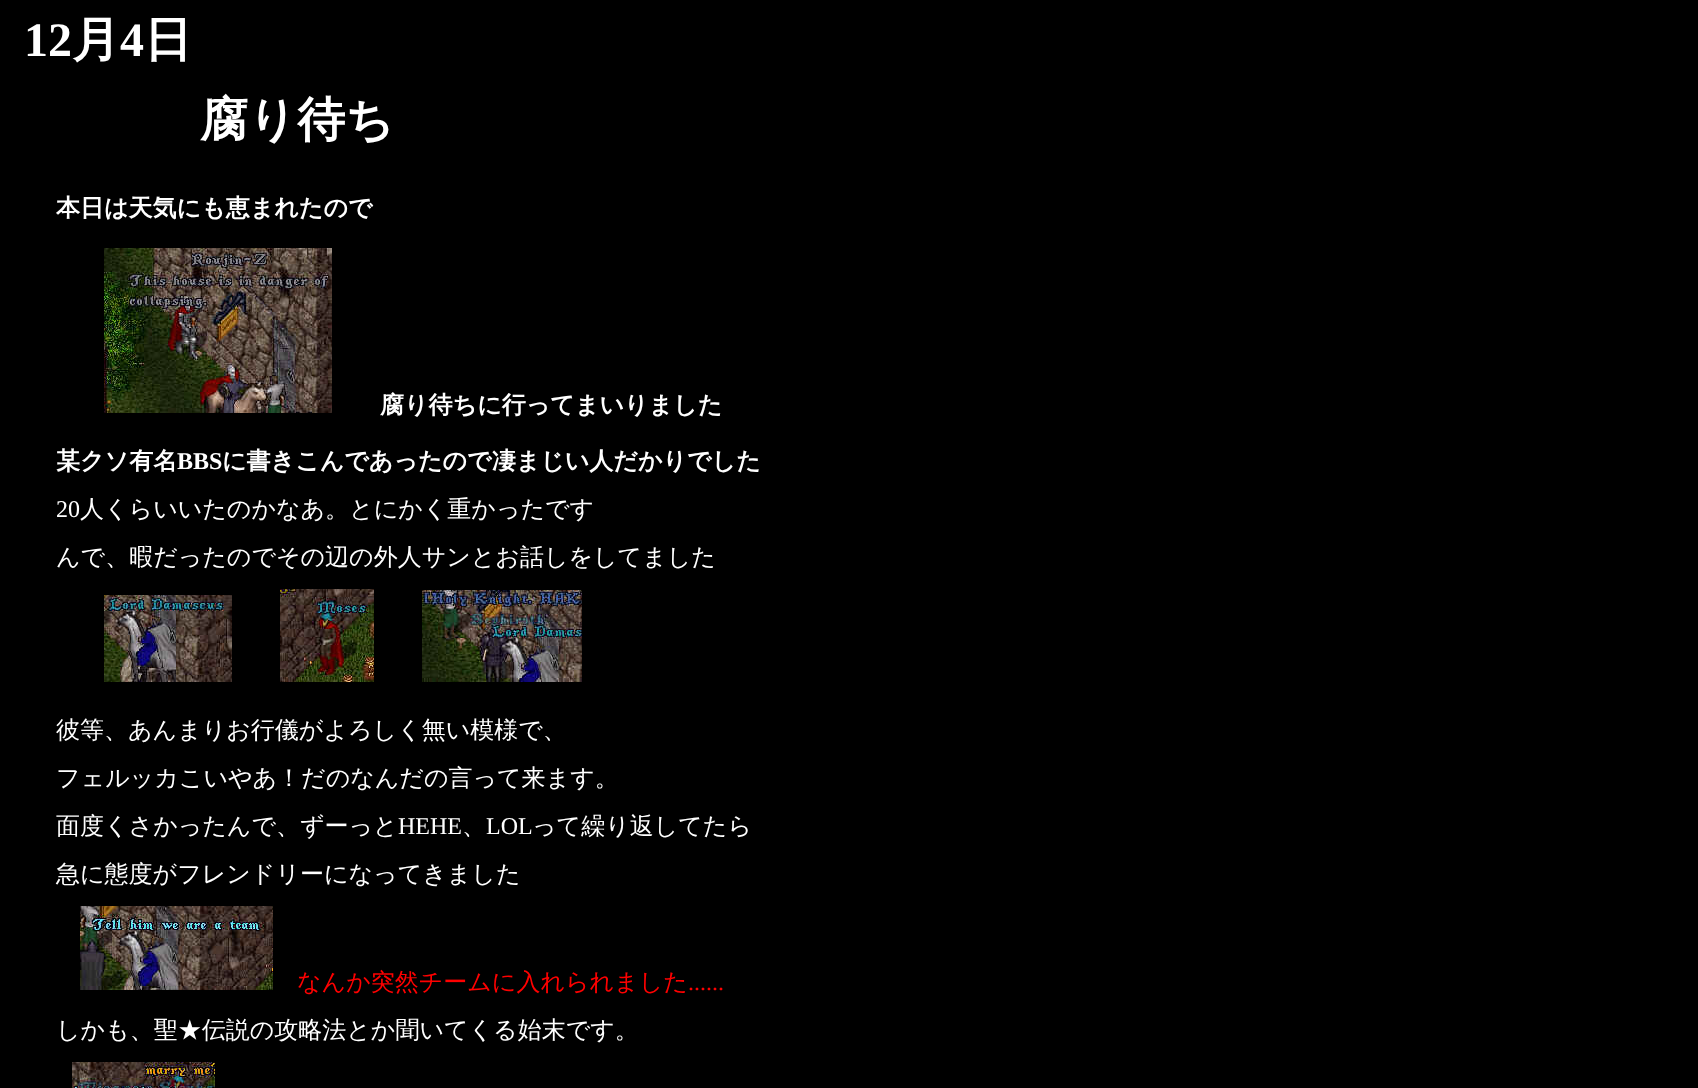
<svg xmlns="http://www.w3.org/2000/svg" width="1698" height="1088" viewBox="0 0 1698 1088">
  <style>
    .t1 { font: bold 48px Liberation Serif; fill: #fff; }
    .t2 { font: bold 48px WenQuanYi Zen Hei; fill: #fff; }
    .t3 { font: bold 24px WenQuanYi Zen Hei; fill: #fff; }
    .t4 { font: bold 24px Liberation Serif; fill: #fff; }
    .t5 { font: 24px Liberation Serif; fill: #fff; }
    .t6 { font: 500 24px WenQuanYi Zen Hei; fill: #fff; }
    .t7 { font: 500 24px WenQuanYi Zen Hei; fill: #f00; }
    .t8 { font: 24px Liberation Serif; fill: #f00; }
  </style>
  <rect width="100%" height="100%" fill="#000"/>
  <text x="24" y="56" class="t1">12</text>
  <text x="72" y="56" class="t2">月</text>
  <text x="120" y="56" class="t1">4</text>
  <text x="144" y="56" class="t2">日</text>
  <text x="200" y="136" class="t2">腐り待ち</text>
  <text x="56" y="216" class="t3">本日は天気にも恵まれたので</text>
  <image x="104" y="248" width="228" height="165" href="images/1.png"/>
  <text x="380" y="413" class="t3">腐り待ちに行ってまいりました</text>
  <text x="56" y="469" class="t3">某クソ有名</text>
  <text x="177" y="469" class="t4">BBS</text>
  <text x="222" y="469" class="t3">に書きこんであったので凄まじい人だかりでした</text>
  <text x="56" y="517" class="t5">20</text>
  <text x="80" y="517" class="t6">人くらいいたのかなあ。とにかく重かったです</text>
  <text x="56" y="565" class="t6">んで、暇だったのでその辺の外人サンとお話しをしてました</text>
  <image x="104" y="595" width="128" height="87" href="images/2.png"/>
  <image x="280" y="589" width="94" height="93" href="images/3.png"/>
  <image x="422" y="590" width="160" height="92" href="images/4.png"/>
  <text x="56" y="738" class="t6">彼等、あんまりお行儀がよろしく無い模様で、</text>
  <text x="56" y="786" class="t6">フェルッカこいやあ！だのなんだの言って来ます。</text>
  <text x="56" y="834" class="t6">面度くさかったんで、ずーっと</text>
  <text x="398" y="834" class="t5">HEHE</text>
  <text x="462" y="834" class="t6">、</text>
  <text x="486" y="834" class="t5">LOL</text>
  <text x="532" y="834" class="t6">って繰り返してたら</text>
  <text x="56" y="882" class="t6">急に態度がフレンドリーになってきました</text>
  <image x="80" y="906" width="193" height="84" href="images/5.png"/>
  <text x="297" y="990" class="t7">なんか突然チームに入れられました</text>
  <text x="688" y="990" class="t8">......</text>
  <text x="56" y="1038" class="t6">しかも、聖★伝説の攻略法とか聞いてくる始末です。</text>
  <image x="72" y="1062" width="143" height="26" href="images/6.png"/>
</svg>
